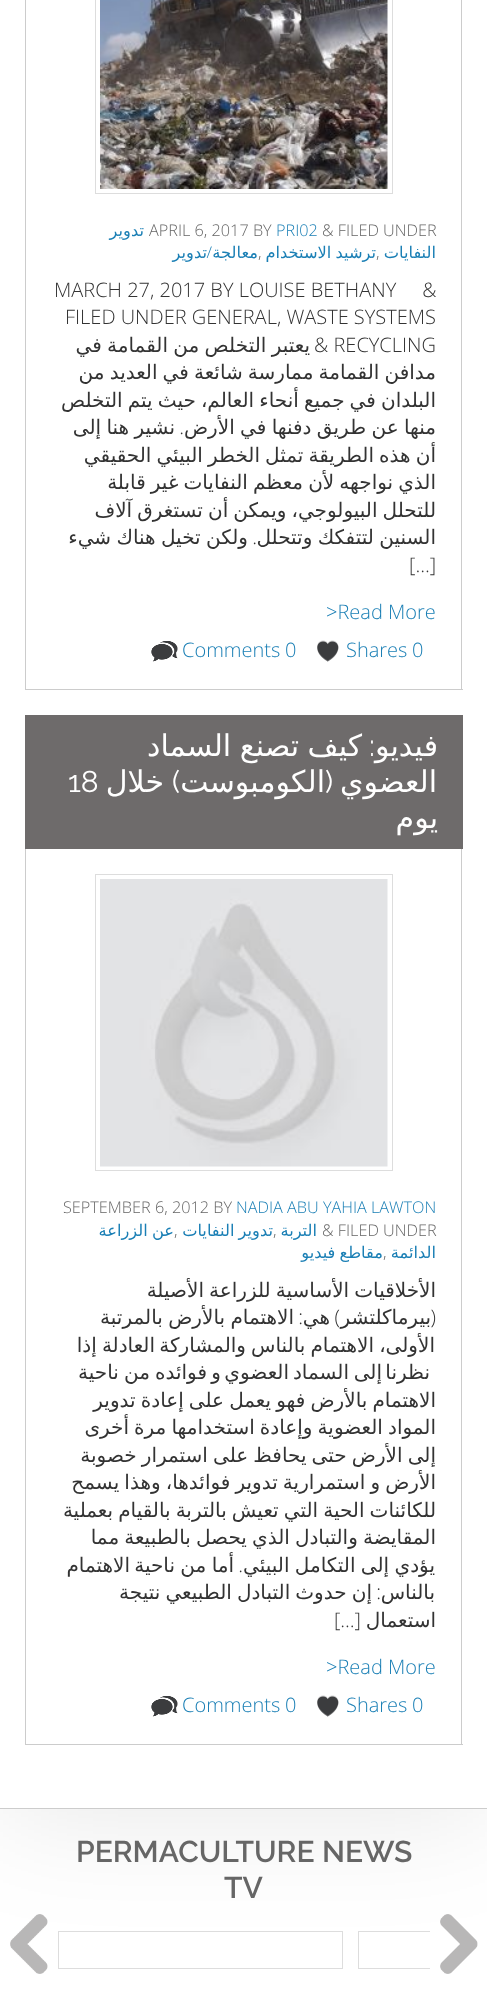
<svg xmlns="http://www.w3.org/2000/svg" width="487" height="2015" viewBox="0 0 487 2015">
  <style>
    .t1 { font: 300 16.25px Open Sans; fill: #666; }
    .t2 { font: 300 16.25px Open Sans; fill: #1a7fb5; }
    .t3 { font: 16.25px DejaVu Sans; direction: rtl; fill: #1a7fb5; }
    .t4 { font: 300 16.25px Open Sans; direction: rtl; fill: #1a7fb5; }
    .t5 { font: 300 20px Open Sans; fill: #333; }
    .t6 { font: 20px DejaVu Sans; direction: rtl; fill: #333; }
    .t7 { font: 300 20px Open Sans; direction: rtl; fill: #333; }
    .t8 { font: 300 20px Open Sans; fill: #1a7fb5; }
    .t9 { font: 30px DejaVu Sans; direction: rtl; fill: #fff; }
    .t10 { font: 30px Raleway; direction: rtl; fill: #fff; }
    .t11 { font: 30px Raleway; fill: #fff; }
    .t12 { font: 600 30px Raleway; fill: #666; }
  </style>
  <defs>
    <clipPath id="clip1"><path d="M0 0H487V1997H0ZM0-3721H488V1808H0Z" clip-rule="evenodd"/></clipPath>
    <clipPath id="clip2"><rect x="58" y="1931" width="372" height="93"/></clipPath>
  </defs>
  <rect width="100%" height="100%" fill="#fff"/>
  <g clip-path="url(#clip1)">
    <rect x="0" y="-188" width="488" height="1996" fill="#0000001a" filter="blur(62.5px)"/>
  </g>
  <rect x="461" y="0" width="1" height="690" fill="#ccc"/>
  <rect x="25" y="689" width="438" height="1" fill="#ccc"/>
  <rect x="25" y="0" width="1" height="690" fill="#ccc"/>
  <rect x="95.5" y="-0.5" width="297" height="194" fill="none" stroke="#ddd"/>
  <image x="100" y="0" width="288" height="189" href="images/1.png"/>
  <text x="322" y="236" class="t1">&amp; FILED UNDER</text>
  <text x="276" y="236" class="t2">PRI02</text>
  <text x="149" y="236" class="t1">APRIL 6, 2017 BY</text>
  <text x="144" y="236" class="t3">تدوير</text>
  <text x="436" y="258" class="t3">النفايات</text>
  <text x="376" y="258" class="t1">,</text>
  <text x="376" y="258" word-spacing="-1" class="t3">ترشيد الاستخدام</text>
  <text x="258" y="258" class="t1">,</text>
  <text x="258" y="258" class="t3">معالجة</text>
  <text x="207" y="258" class="t3">تدوير</text>
  <text x="212" y="258" class="t4">/</text>
  <text x="54" y="297" class="t5" xml:space="preserve">MARCH 27, 2017 BY LOUISE BETHANY     &amp;</text>
  <text x="65" y="324" class="t5">FILED UNDER GENERAL, WASTE SYSTEMS</text>
  <text x="314" y="352" class="t5">&amp; RECYCLING</text>
  <text x="310" y="352" word-spacing="-1" class="t6">يعتبر التخلص من القمامة في</text>
  <text x="436" y="379" word-spacing="-1.25" class="t6">مدافن القمامة ممارسة شائعة في العديد من</text>
  <text x="436" y="407" word-spacing="-1.25" class="t6">البلدان في جميع أنحاء العالم، حيث يتم التخلص</text>
  <text x="436" y="434" word-spacing="-1" class="t6">منها عن طريق دفنها في الأرض</text>
  <text x="184" y="434" class="t7">.</text>
  <text x="175" y="434" word-spacing="-1" class="t6">نشير هنا إلى</text>
  <text x="436" y="462" word-spacing="-1.25" class="t6">أن هذه الطريقة تمثل الخطر البيئي الحقيقي</text>
  <text x="436" y="489" word-spacing="-1.25" class="t6">الذي نواجهه لأن معظم النفايات غير قابلة</text>
  <text x="436" y="517" word-spacing="-1.25" class="t6">للتحلل البيولوجي، ويمكن أن تستغرق آلاف</text>
  <text x="436" y="544" word-spacing="-1" class="t6">السنين لتتفكك وتتحلل</text>
  <text x="257" y="544" class="t7">.</text>
  <text x="248" y="544" word-spacing="-1" class="t6">ولكن تخيل هناك شيء</text>
  <text x="409" y="572" class="t5">[…]</text>
  <text x="326" y="619" class="t8">&gt;Read More</text>
  <image x="317" y="640" width="22" height="22" href="images/2.png"/>
  <text x="412" y="657" class="t8">0</text>
  <text x="346" y="657" class="t8">Shares</text>
  <image x="151" y="641" width="27" height="21" href="images/3.png"/>
  <text x="285" y="657" class="t8">0</text>
  <text x="182" y="657" class="t8">Comments</text>
  <rect x="25" y="715" width="438" height="134" fill="#6e6b6b"/>
  <text x="438" y="756" class="t9">فيديو</text>
  <text x="375" y="756" class="t10">:</text>
  <text x="362" y="756" word-spacing="-1" class="t9">كيف تصنع السماد</text>
  <text x="437" y="792" class="t9">العضوي</text>
  <text x="333" y="792" class="t10">(</text>
  <text x="325" y="792" class="t9">الكومبوست</text>
  <text x="180" y="792" class="t10">)</text>
  <text x="164" y="792" class="t9">خلال</text>
  <text x="68" y="792" class="t11">18</text>
  <text x="438" y="828" class="t9">يوم</text>
  <rect x="461" y="849" width="1" height="896" fill="#ccc"/>
  <rect x="25" y="1744" width="438" height="1" fill="#ccc"/>
  <rect x="25" y="849" width="1" height="896" fill="#ccc"/>
  <rect x="95.5" y="874.5" width="297" height="296" fill="none" stroke="#ddd"/>
  <image x="100" y="879" width="288" height="288" href="images/4.png"/>
  <text x="236" y="1213" class="t2">NADIA ABU YAHIA LAWTON</text>
  <text x="63" y="1213" class="t1">SEPTEMBER 6, 2012 BY</text>
  <text x="322" y="1236" class="t1">&amp; FILED UNDER</text>
  <text x="317" y="1236" class="t3">التربة</text>
  <text x="273" y="1236" class="t1">,</text>
  <text x="273" y="1236" word-spacing="-1" class="t3">تدوير النفايات</text>
  <text x="174" y="1236" class="t1">,</text>
  <text x="174" y="1236" word-spacing="-1" class="t3">عن الزراعة</text>
  <text x="436" y="1258" class="t3">الدائمة</text>
  <text x="383" y="1258" class="t1">,</text>
  <text x="383" y="1258" word-spacing="-1" class="t3">مقاطع فيديو</text>
  <text x="436" y="1297" word-spacing="-1.25" class="t6">الأخلاقيات الأساسية للزراعة الأصيلة</text>
  <text x="436" y="1324" class="t7">(</text>
  <text x="340" y="1324" class="t7">)</text>
  <text x="431" y="1324" class="t6">بيرماكلتشر</text>
  <text x="330" y="1324" class="t6">هي</text>
  <text x="303" y="1324" class="t7">:</text>
  <text x="294" y="1324" word-spacing="-1" class="t6">الاهتمام بالأرض بالمرتبة</text>
  <text x="435" y="1352" word-spacing="-1.25" class="t6">الأولى، الاهتمام بالناس والمشاركة</text>
  <text x="155" y="1352" word-spacing="-1.25" class="t6">العادلة إذا</text>
  <text x="430" y="1379" class="t6">نظرنا</text>
  <text x="382" y="1379" class="t6">إلى</text>
  <text x="349" y="1379" class="t6">السماد</text>
  <text x="289" y="1379" class="t6">العضوي</text>
  <text x="221" y="1379" class="t6">و</text>
  <text x="207" y="1379" word-spacing="-1.25" class="t6">فوائده من ناحية</text>
  <text x="436" y="1407" word-spacing="-1.25" class="t6">الاهتمام بالأرض فهو يعمل على إعادة تدوير</text>
  <text x="436" y="1434" word-spacing="-1.25" class="t6">المواد العضوية وإعادة استخدامها مرة أخرى</text>
  <text x="436" y="1462" word-spacing="-1.25" class="t6">إلى الأرض حتى يحافظ على استمرار خصوبة</text>
  <text x="436" y="1489" word-spacing="-1.25" class="t6">الأرض و استمرارية تدوير فوائدها، وهذا يسمح</text>
  <text x="436" y="1517" word-spacing="-1.25" class="t6">للكائنات الحية التي تعيش بالتربة بالقيام بعملية</text>
  <text x="436" y="1544" word-spacing="-1.25" class="t6">المقايضة والتبادل الذي يحصل بالطبيعة مما</text>
  <text x="435" y="1572" word-spacing="-1" class="t6">يؤدي إلى التكامل البيئي</text>
  <text x="243" y="1572" class="t7">.</text>
  <text x="234" y="1572" word-spacing="-1" class="t6">أما من ناحية</text>
  <text x="130" y="1572" class="t6">الاهتمام</text>
  <text x="435" y="1599" class="t6">بالناس</text>
  <text x="381" y="1599" class="t7">:</text>
  <text x="372" y="1599" word-spacing="-1.25" class="t6">إن حدوث التبادل الطبيعي نتيجة</text>
  <text x="436" y="1627" class="t6">استعمال</text>
  <text x="361" y="1627" class="t7">[…]</text>
  <text x="326" y="1674" class="t8">&gt;Read More</text>
  <image x="317" y="1695" width="22" height="22" href="images/2.png"/>
  <text x="412" y="1712" class="t8">0</text>
  <text x="346" y="1712" class="t8">Shares</text>
  <image x="151" y="1696" width="27" height="21" href="images/3.png"/>
  <text x="285" y="1712" class="t8">0</text>
  <text x="182" y="1712" class="t8">Comments</text>
  <rect x="0" y="1808" width="487" height="1" fill="#ccc"/>
  <text x="76" y="1862" class="t12">PERMACULTURE NEWS</text>
  <text x="224" y="1898" class="t12">TV</text>
  <g clip-path="url(#clip2)">
    <rect x="358.5" y="1931.5" width="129" height="37" fill="none" stroke="#ddd"/>
  </g>
  <image x="440" y="1914" width="38" height="60" href="images/5.png"/>
  <image x="10" y="1914" width="38" height="60" href="images/6.png"/>
  <rect x="58.5" y="1931.5" width="284" height="37" fill="none" stroke="#ddd"/>
</svg>
